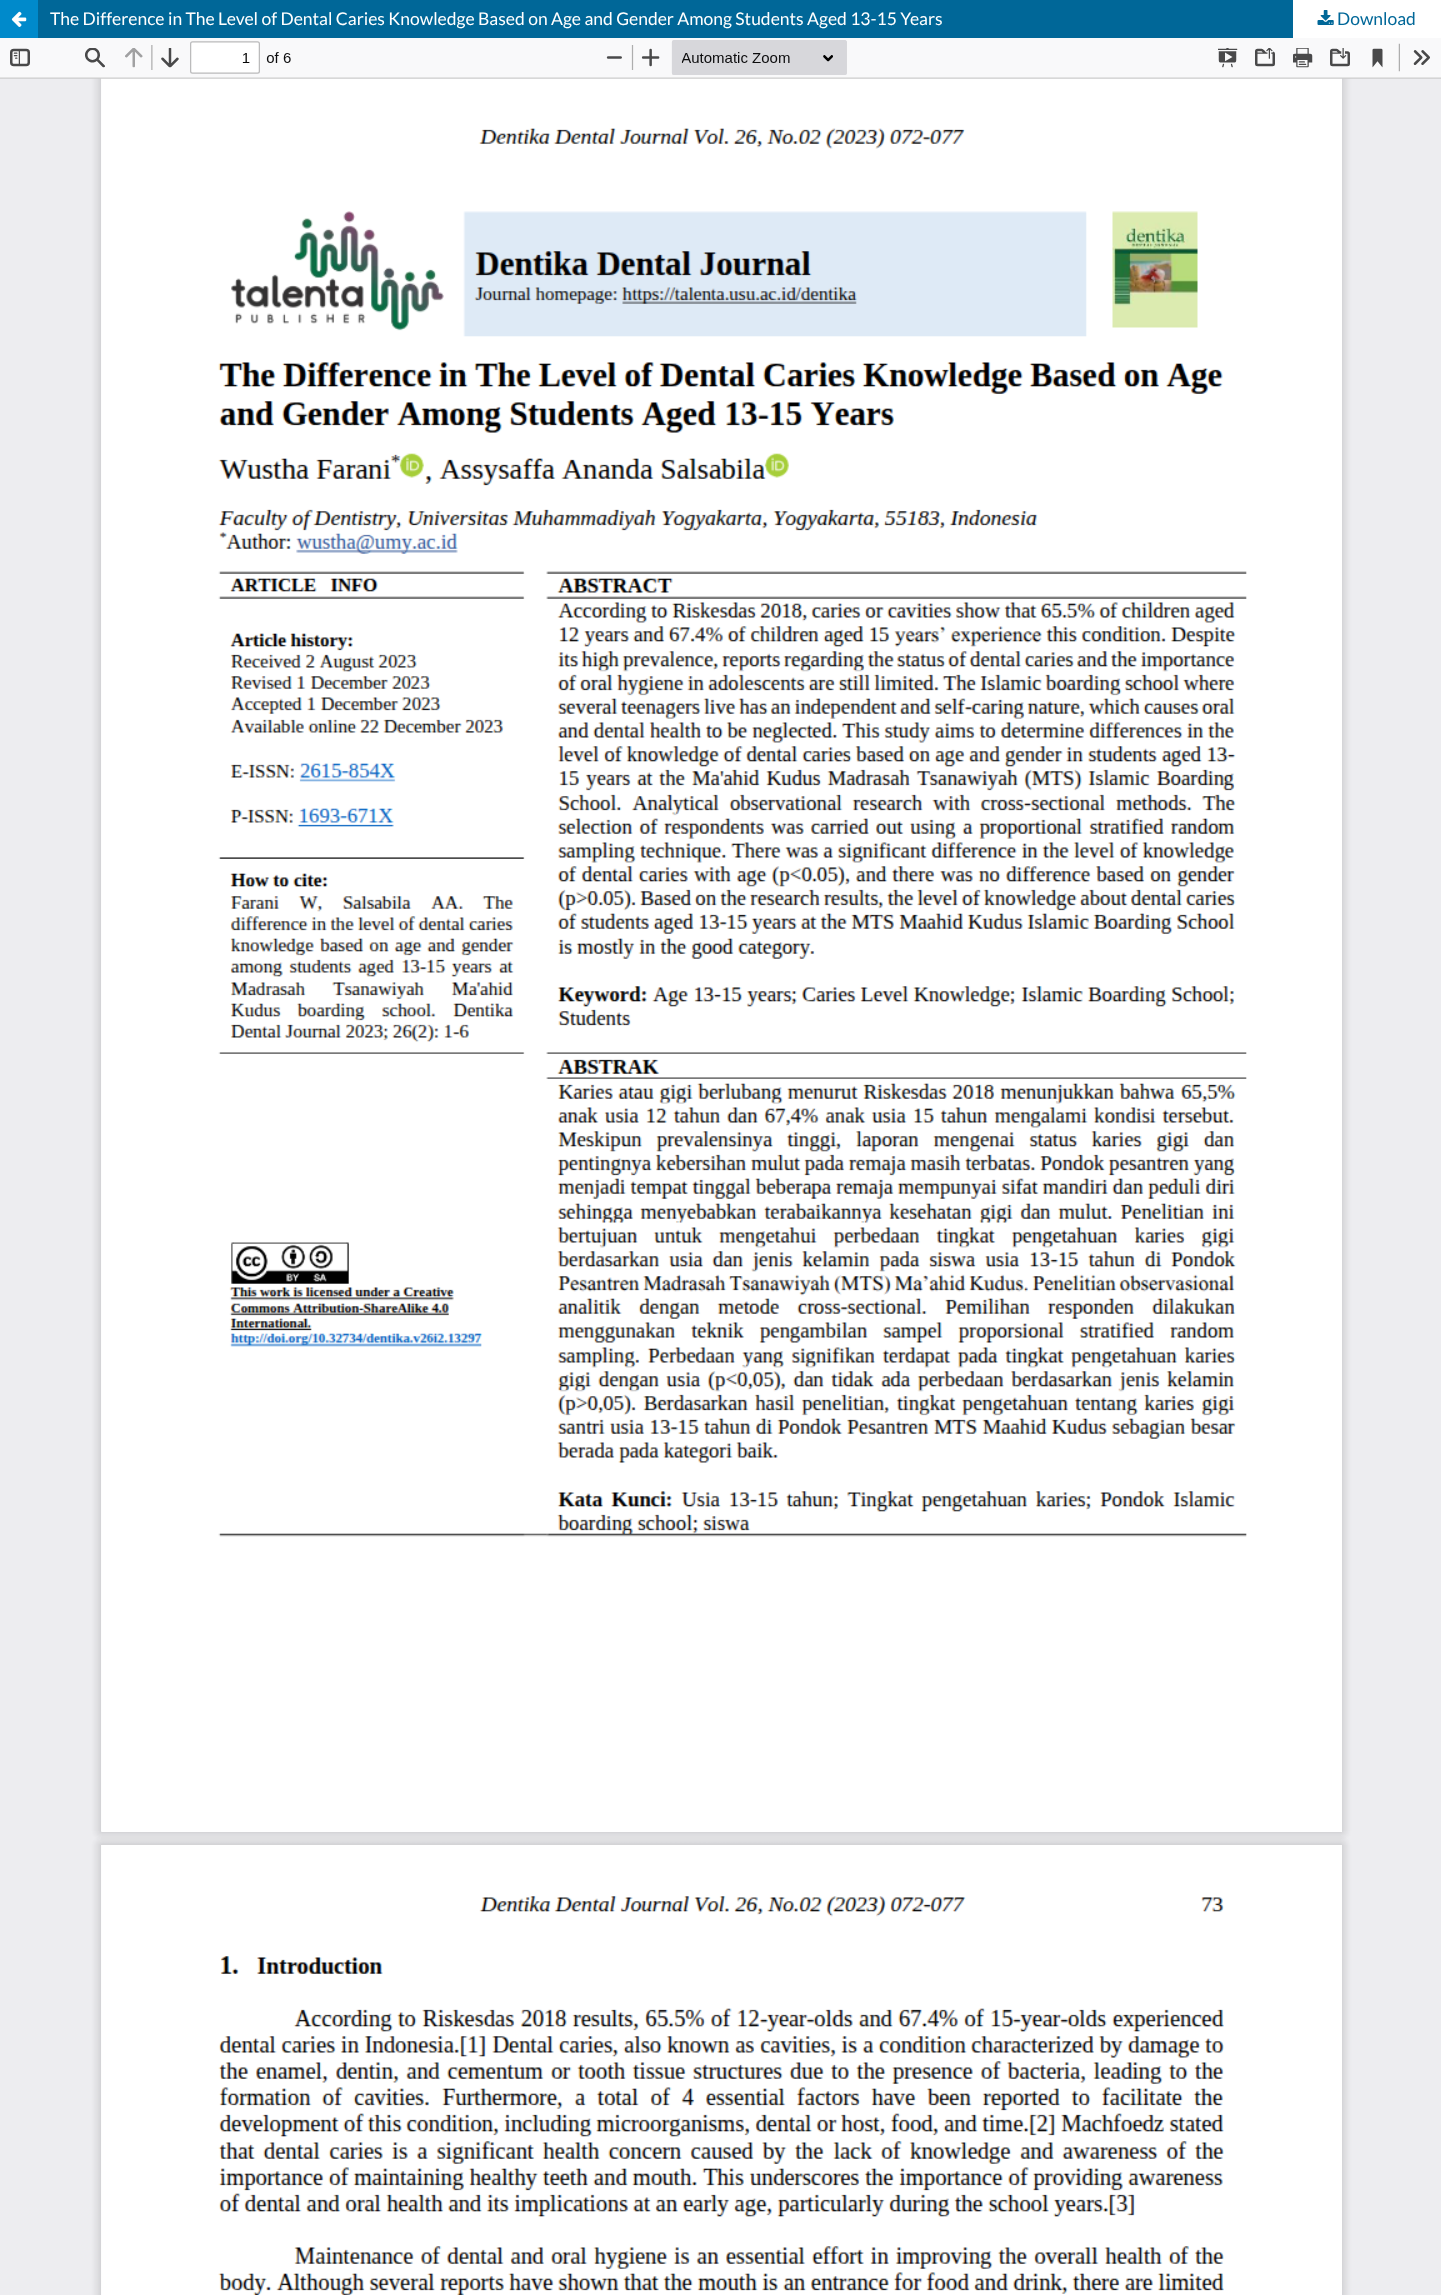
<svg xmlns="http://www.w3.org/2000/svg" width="1441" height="2295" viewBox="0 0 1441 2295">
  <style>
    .t1 { font: 17.5px Lato; fill: #fff; }
    .t2 { font: 17.5px Lato; fill: #006798; }
  </style>
  <rect width="100%" height="100%" fill="#fff"/>
  <rect x="38" y="0" width="1255" height="38" fill="#006798"/>
  <rect x="0" y="0" width="38" height="38" fill="#008acb"/>
  <image x="11" y="11" width="16" height="16" href="images/1.png"/>
  <text x="50" y="25" class="t1">The Difference in The Level of Dental Caries Knowledge Based on Age and Gender Among Students Aged 13-15 Years</text>
  <image x="1317" y="10" width="17" height="15" href="images/2.png"/>
  <text x="1337" y="25" class="t2">Download</text>
  <image x="0" y="38" width="1441" height="2257" href="images/3.png"/>
</svg>
